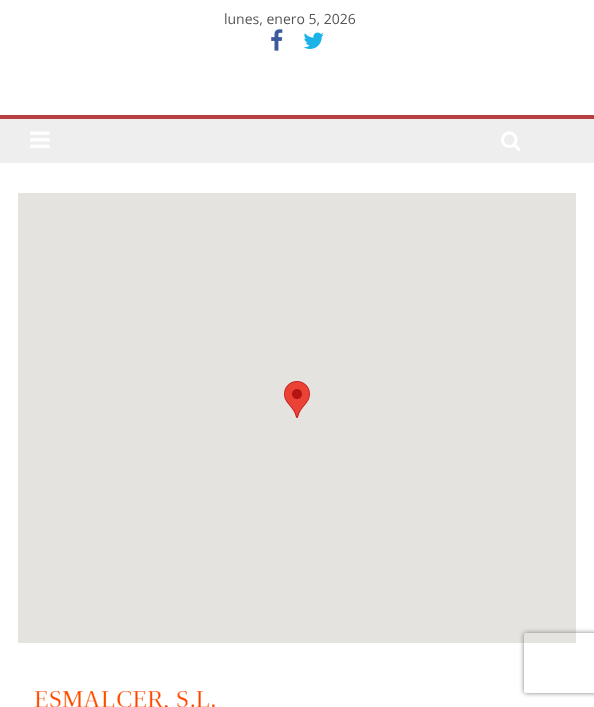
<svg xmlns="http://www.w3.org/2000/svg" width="594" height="707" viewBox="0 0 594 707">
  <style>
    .t1 { font: 14px Open Sans; fill: #555; }
  </style>
  <defs>
    <clipPath id="clip1"><path d="M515 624H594V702H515ZM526 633H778C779 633 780 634 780 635V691C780 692 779 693 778 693H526C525 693 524 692 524 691V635C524 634 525 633 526 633Z" clip-rule="evenodd"/></clipPath>
  </defs>
  <rect width="100%" height="100%" fill="#fff"/>
  <text x="224" y="24" class="t1">lunes, enero 5, 2026</text>
  <image x="271" y="29" width="12" height="22" href="images/1.png"/>
  <image x="303" y="32" width="21" height="17" href="images/2.png"/>
  <rect x="0" y="119" width="594" height="44" fill="#eee"/>
  <rect x="0" y="115" width="594" height="4" fill="#b64041"/>
  <image x="30" y="131" width="20" height="17" href="images/3.png"/>
  <image x="501" y="131" width="20" height="20" href="images/4.png"/>
  <rect x="18" y="193" width="558" height="450" fill="#e5e3df"/>
  <image x="284" y="381" width="26" height="37" href="images/5.png"/>
  <image x="35" y="691" width="180" height="16" href="images/6.png"/>
  <g clip-path="url(#clip1)">
    <rect x="524" y="633" width="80" height="60" rx="2" fill="#808080" filter="blur(2.5px)"/>
  </g>
</svg>
